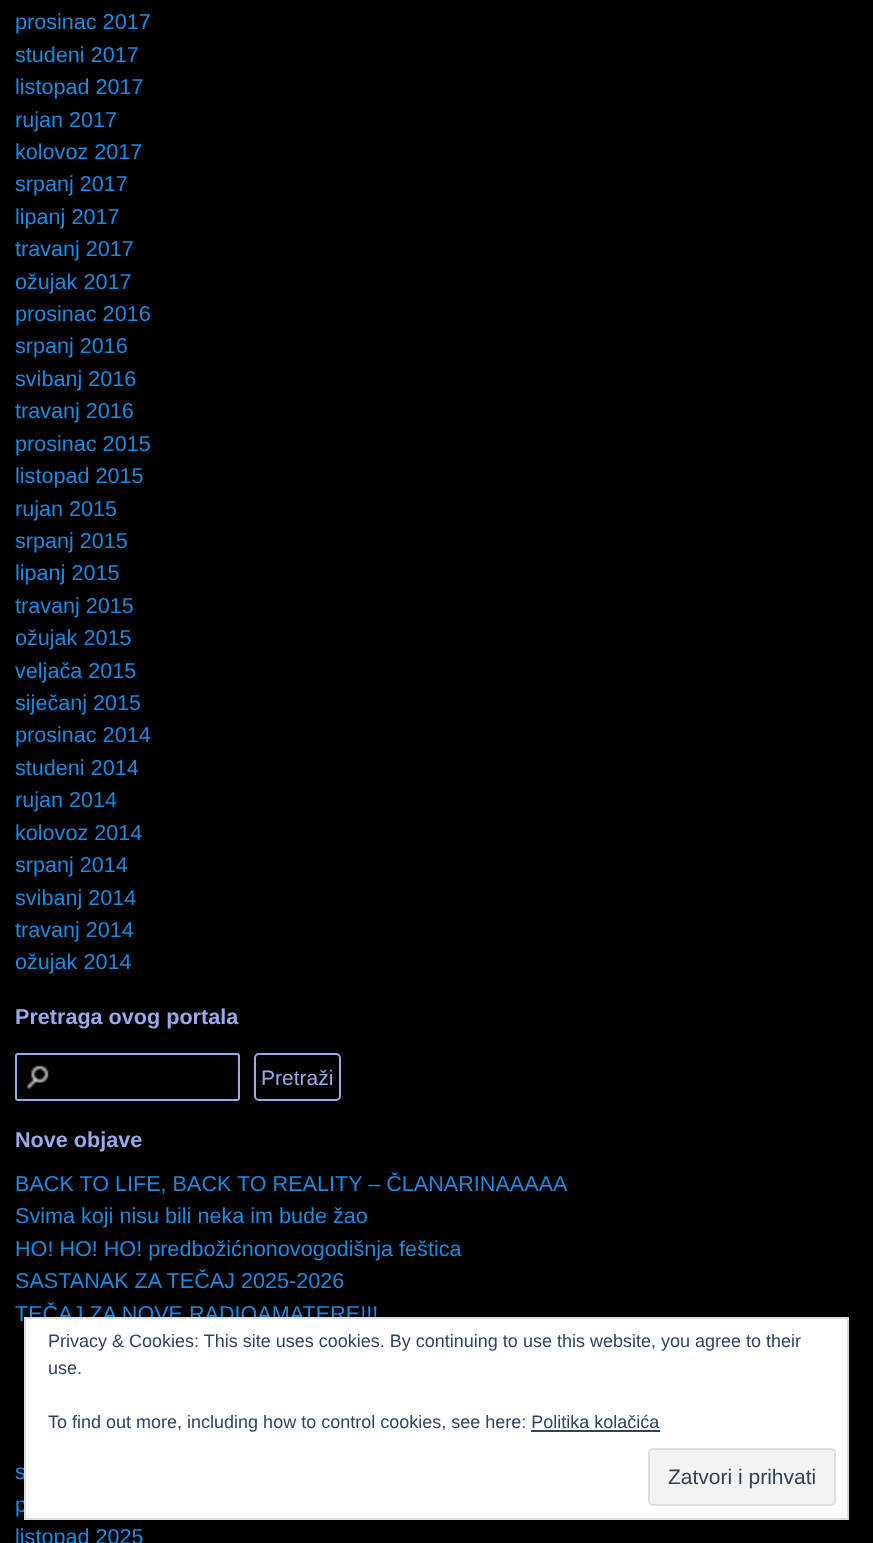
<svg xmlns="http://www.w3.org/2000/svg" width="873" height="1543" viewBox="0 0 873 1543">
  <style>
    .t1 { font: 21.6px Liberation Sans; fill: #1b8be0; }
    .t2 { font: bold 21.6px Liberation Sans; fill: #9aa9ea; }
    .t3 { font: 21px Liberation Sans; fill: #9aa9ea; }
    .t4 { font: 18px Liberation Sans; fill: #2e4467; }
    .t5 { font: 21px Liberation Sans; fill: #2e4453; }
  </style>
  <rect width="100%" height="100%" fill="#010101"/>
  <text x="15" y="29" class="t1">prosinac 2017</text>
  <text x="15" y="62" class="t1">studeni 2017</text>
  <text x="15" y="94" class="t1">listopad 2017</text>
  <text x="15" y="127" class="t1">rujan 2017</text>
  <text x="15" y="159" class="t1">kolovoz 2017</text>
  <text x="15" y="191" class="t1">srpanj 2017</text>
  <text x="15" y="224" class="t1">lipanj 2017</text>
  <text x="15" y="256" class="t1">travanj 2017</text>
  <text x="15" y="289" class="t1">ožujak 2017</text>
  <text x="15" y="321" class="t1">prosinac 2016</text>
  <text x="15" y="353" class="t1">srpanj 2016</text>
  <text x="15" y="386" class="t1">svibanj 2016</text>
  <text x="15" y="418" class="t1">travanj 2016</text>
  <text x="15" y="451" class="t1">prosinac 2015</text>
  <text x="15" y="483" class="t1">listopad 2015</text>
  <text x="15" y="516" class="t1">rujan 2015</text>
  <text x="15" y="548" class="t1">srpanj 2015</text>
  <text x="15" y="580" class="t1">lipanj 2015</text>
  <text x="15" y="613" class="t1">travanj 2015</text>
  <text x="15" y="645" class="t1">ožujak 2015</text>
  <text x="15" y="678" class="t1">veljača 2015</text>
  <text x="15" y="710" class="t1">siječanj 2015</text>
  <text x="15" y="742" class="t1">prosinac 2014</text>
  <text x="15" y="775" class="t1">studeni 2014</text>
  <text x="15" y="807" class="t1">rujan 2014</text>
  <text x="15" y="840" class="t1">kolovoz 2014</text>
  <text x="15" y="872" class="t1">srpanj 2014</text>
  <text x="15" y="905" class="t1">svibanj 2014</text>
  <text x="15" y="937" class="t1">travanj 2014</text>
  <text x="15" y="969" class="t1">ožujak 2014</text>
  <text x="15" y="1024" class="t2">Pretraga ovog portala</text>
  <image x="26" y="1065" width="23" height="24" href="images/1.png"/>
  <rect x="16" y="1054" width="223" height="46" rx="2" fill="none" stroke="#9aa9ea" stroke-width="2"/>
  <rect x="255" y="1054" width="85" height="46" rx="4" fill="none" stroke="#9aa9ea" stroke-width="2"/>
  <text x="261" y="1085" class="t3">Pretraži</text>
  <text x="15" y="1147" class="t2">Nove objave</text>
  <text x="15" y="1191" class="t1">BACK TO LIFE, BACK TO REALITY – ČLANARINAAAAA</text>
  <text x="15" y="1223" class="t1">Svima koji nisu bili neka im bude žao</text>
  <text x="15" y="1256" class="t1">HO! HO! HO! predbožićnonovogodišnja feštica</text>
  <text x="15" y="1288" class="t1">SASTANAK ZA TEČAJ 2025-2026</text>
  <text x="15" y="1321" class="t1">TEČAJ ZA NOVE RADIOAMATERE!!!</text>
  <text x="15" y="1479" class="t1">s</text>
  <text x="15" y="1512" class="t1">p</text>
  <text x="15" y="1544" class="t1">listopad 2025</text>
  <rect x="25" y="1318" width="823" height="201" fill="#fff" stroke="#dedede" stroke-width="2"/>
  <text x="48" y="1347" class="t4">Privacy &amp; Cookies: This site uses cookies. By continuing to use this website, you agree to their</text>
  <text x="48" y="1374" class="t4">use.</text>
  <text x="48" y="1428" class="t4">To find out more, including how to control cookies, see here: Politika kolačića</text>
  <rect x="531" y="1430" width="129" height="2" fill="#2e4467"/>
  <rect x="649" y="1449" width="186" height="56" rx="4" fill="#f3f3f3" stroke="#dedede" stroke-width="2"/>
  <text x="668" y="1484" class="t5">Zatvori i prihvati</text>
</svg>
